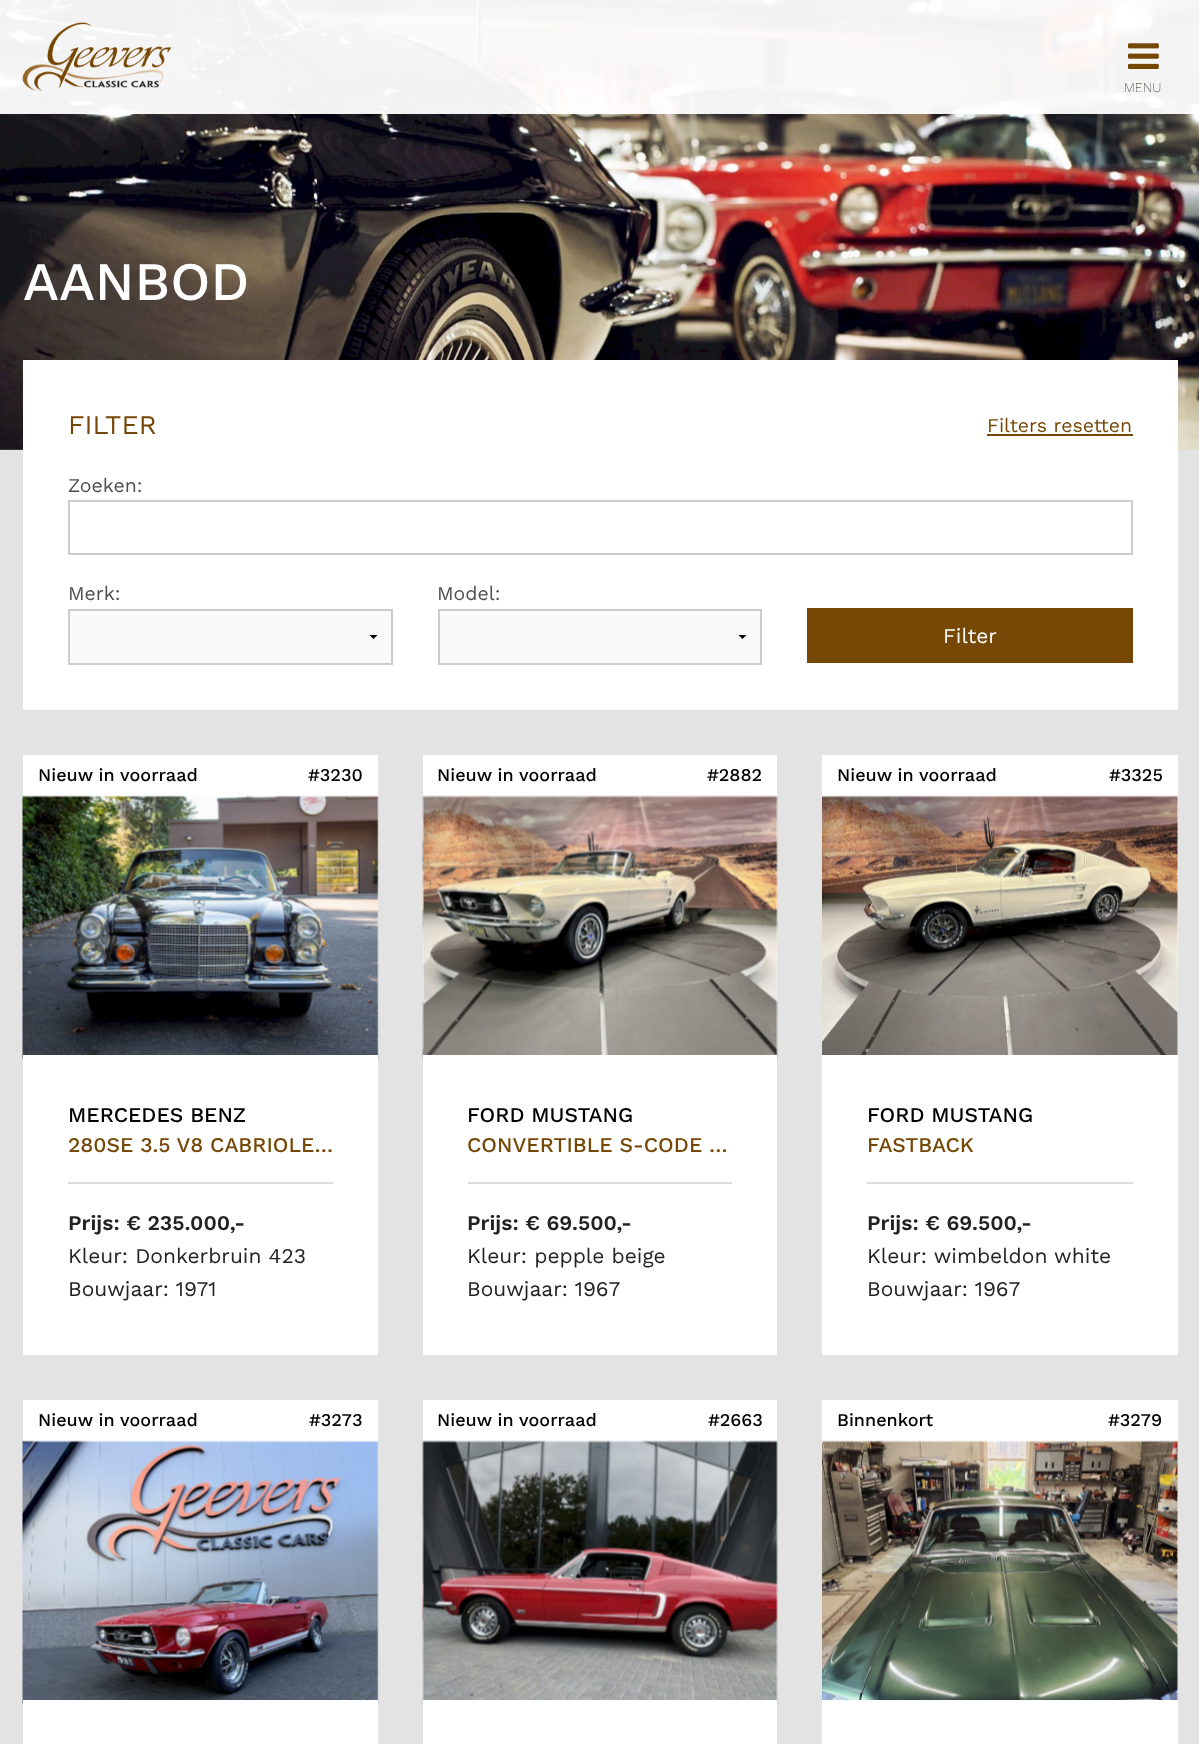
<svg xmlns="http://www.w3.org/2000/svg" width="1199" height="1744" viewBox="0 0 1199 1744">
  <style>
    .t1 { font: 200 13.5px Work Sans; fill: #222; }
    .t2 { font: 500 54px Work Sans; fill: #fff; }
    .t3 { font: 27px Work Sans; fill: #754805; }
    .t4 { font: 19.5px Work Sans; fill: #754805; }
    .t5 { font: 19.5px Work Sans; fill: #4d4d4d; }
    .t6 { font: 21px Work Sans; fill: #fff; }
    .t7 { font: 500 18px Work Sans; fill: #000; }
    .t8 { font: 500 21px Work Sans; fill: #000; }
    .t9 { font: 500 21px Work Sans; fill: #754805; }
    .t10 { font: 600 21px Work Sans; fill: #222; }
    .t11 { font: 21px Work Sans; fill: #222; }
  </style>
  <defs>
    <clipPath id="clip1"><rect x="356" y="635" width="36" height="5"/></clipPath>
    <clipPath id="clip2"><rect x="725" y="635" width="36" height="5"/></clipPath>
  </defs>
  <rect width="100%" height="100%" fill="#e3e3e3"/>
  <image x="0" y="0" width="1199" height="450" href="images/3.png"/>
  <rect x="0" y="0" width="1199" height="114" fill="#fffffff2"/>
  <image x="22" y="22" width="149" height="69" href="images/1.png"/>
  <image x="1128" y="43" width="31" height="26" href="images/2.png"/>
  <text x="1124" y="92" class="t1">MENU</text>
  <text x="23" y="300" class="t2">AANBOD</text>
  <rect x="23" y="360" width="1155" height="350" fill="#fff"/>
  <text x="68" y="434" class="t3">FILTER</text>
  <text x="987" y="432" class="t4">Filters resetten</text>
  <rect x="987" y="434" width="146" height="2" fill="#754805"/>
  <text x="68" y="492" class="t5">Zoeken:</text>
  <rect x="69" y="501" width="1063" height="53" fill="none" stroke="#ccc" stroke-width="2"/>
  <text x="68" y="600" class="t5">Merk:</text>
  <rect x="70" y="611" width="321" height="52" fill="#fafafa"/>
  <g clip-path="url(#clip1)">
    <path d="M378 634.5L373.5 639L369 634.5Z" fill="#000"/>
  </g>
  <rect x="69" y="610" width="323" height="54" fill="none" stroke="#ccc" stroke-width="2"/>
  <text x="437" y="600" class="t5">Model:</text>
  <rect x="440" y="611" width="320" height="52" fill="#fafafa"/>
  <g clip-path="url(#clip2)">
    <path d="M747 634.5L742.5 639L738 634.5Z" fill="#000"/>
  </g>
  <rect x="439" y="610" width="322" height="54" fill="none" stroke="#ccc" stroke-width="2"/>
  <rect x="807" y="608" width="326" height="55" fill="#754805"/>
  <text x="943" y="643" class="t6">Filter</text>
  <rect x="23" y="755" width="355" height="300" fill="#fff"/>
  <text x="38" y="781" class="t7">Nieuw in voorraad</text>
  <text x="308" y="781" class="t7">#3230</text>
  <image x="22" y="795" width="357" height="265" href="images/4.png"/>
  <rect x="23" y="1055" width="355" height="300" fill="#fff"/>
  <rect x="68" y="1182" width="265" height="2" fill="#ddd"/>
  <text x="68" y="1122" class="t8">MERCEDES BENZ</text>
  <text x="68" y="1152" class="t9">280SE 3.5 V8 CABRIOLE…</text>
  <text x="68" y="1230" class="t10">Prijs: € 235.000,-</text>
  <text x="68" y="1263" class="t11">Kleur: Donkerbruin 423</text>
  <text x="68" y="1296" class="t11">Bouwjaar: 1971</text>
  <rect x="423" y="755" width="354" height="300" fill="#fff"/>
  <text x="437" y="781" class="t7">Nieuw in voorraad</text>
  <text x="707" y="781" class="t7">#2882</text>
  <image x="422" y="795" width="356" height="265" href="images/5.png"/>
  <rect x="423" y="1055" width="354" height="300" fill="#fff"/>
  <rect x="468" y="1182" width="264" height="2" fill="#ddd"/>
  <text x="467" y="1122" class="t8">FORD MUSTANG</text>
  <text x="467" y="1152" class="t9">CONVERTIBLE S-CODE …</text>
  <text x="467" y="1230" class="t10">Prijs: € 69.500,-</text>
  <text x="467" y="1263" class="t11">Kleur: pepple beige</text>
  <text x="467" y="1296" class="t11">Bouwjaar: 1967</text>
  <rect x="822" y="755" width="356" height="600" fill="#fff"/>
  <text x="837" y="781" class="t7">Nieuw in voorraad</text>
  <text x="1109" y="781" class="t7">#3325</text>
  <image x="822" y="795" width="356" height="260" href="images/6.png"/>
  <rect x="867" y="1182" width="266" height="2" fill="#ddd"/>
  <text x="867" y="1122" class="t8">FORD MUSTANG</text>
  <text x="867" y="1152" class="t9">FASTBACK</text>
  <text x="867" y="1230" class="t10">Prijs: € 69.500,-</text>
  <text x="867" y="1263" class="t11">Kleur: wimbeldon white</text>
  <text x="867" y="1296" class="t11">Bouwjaar: 1967</text>
  <rect x="23" y="1400" width="355" height="300" fill="#fff"/>
  <text x="38" y="1426" class="t7">Nieuw in voorraad</text>
  <text x="309" y="1426" class="t7">#3273</text>
  <image x="22" y="1440" width="357" height="265" href="images/7.png"/>
  <rect x="23" y="1700" width="355" height="44" fill="#fff"/>
  <rect x="423" y="1400" width="354" height="300" fill="#fff"/>
  <text x="437" y="1426" class="t7">Nieuw in voorraad</text>
  <text x="708" y="1426" class="t7">#2663</text>
  <image x="422" y="1440" width="356" height="265" href="images/8.png"/>
  <rect x="423" y="1700" width="354" height="44" fill="#fff"/>
  <rect x="822" y="1400" width="356" height="344" fill="#fff"/>
  <text x="837" y="1426" class="t7">Binnenkort</text>
  <text x="1108" y="1426" class="t7">#3279</text>
  <image x="822" y="1440" width="356" height="260" href="images/9.png"/>
</svg>
